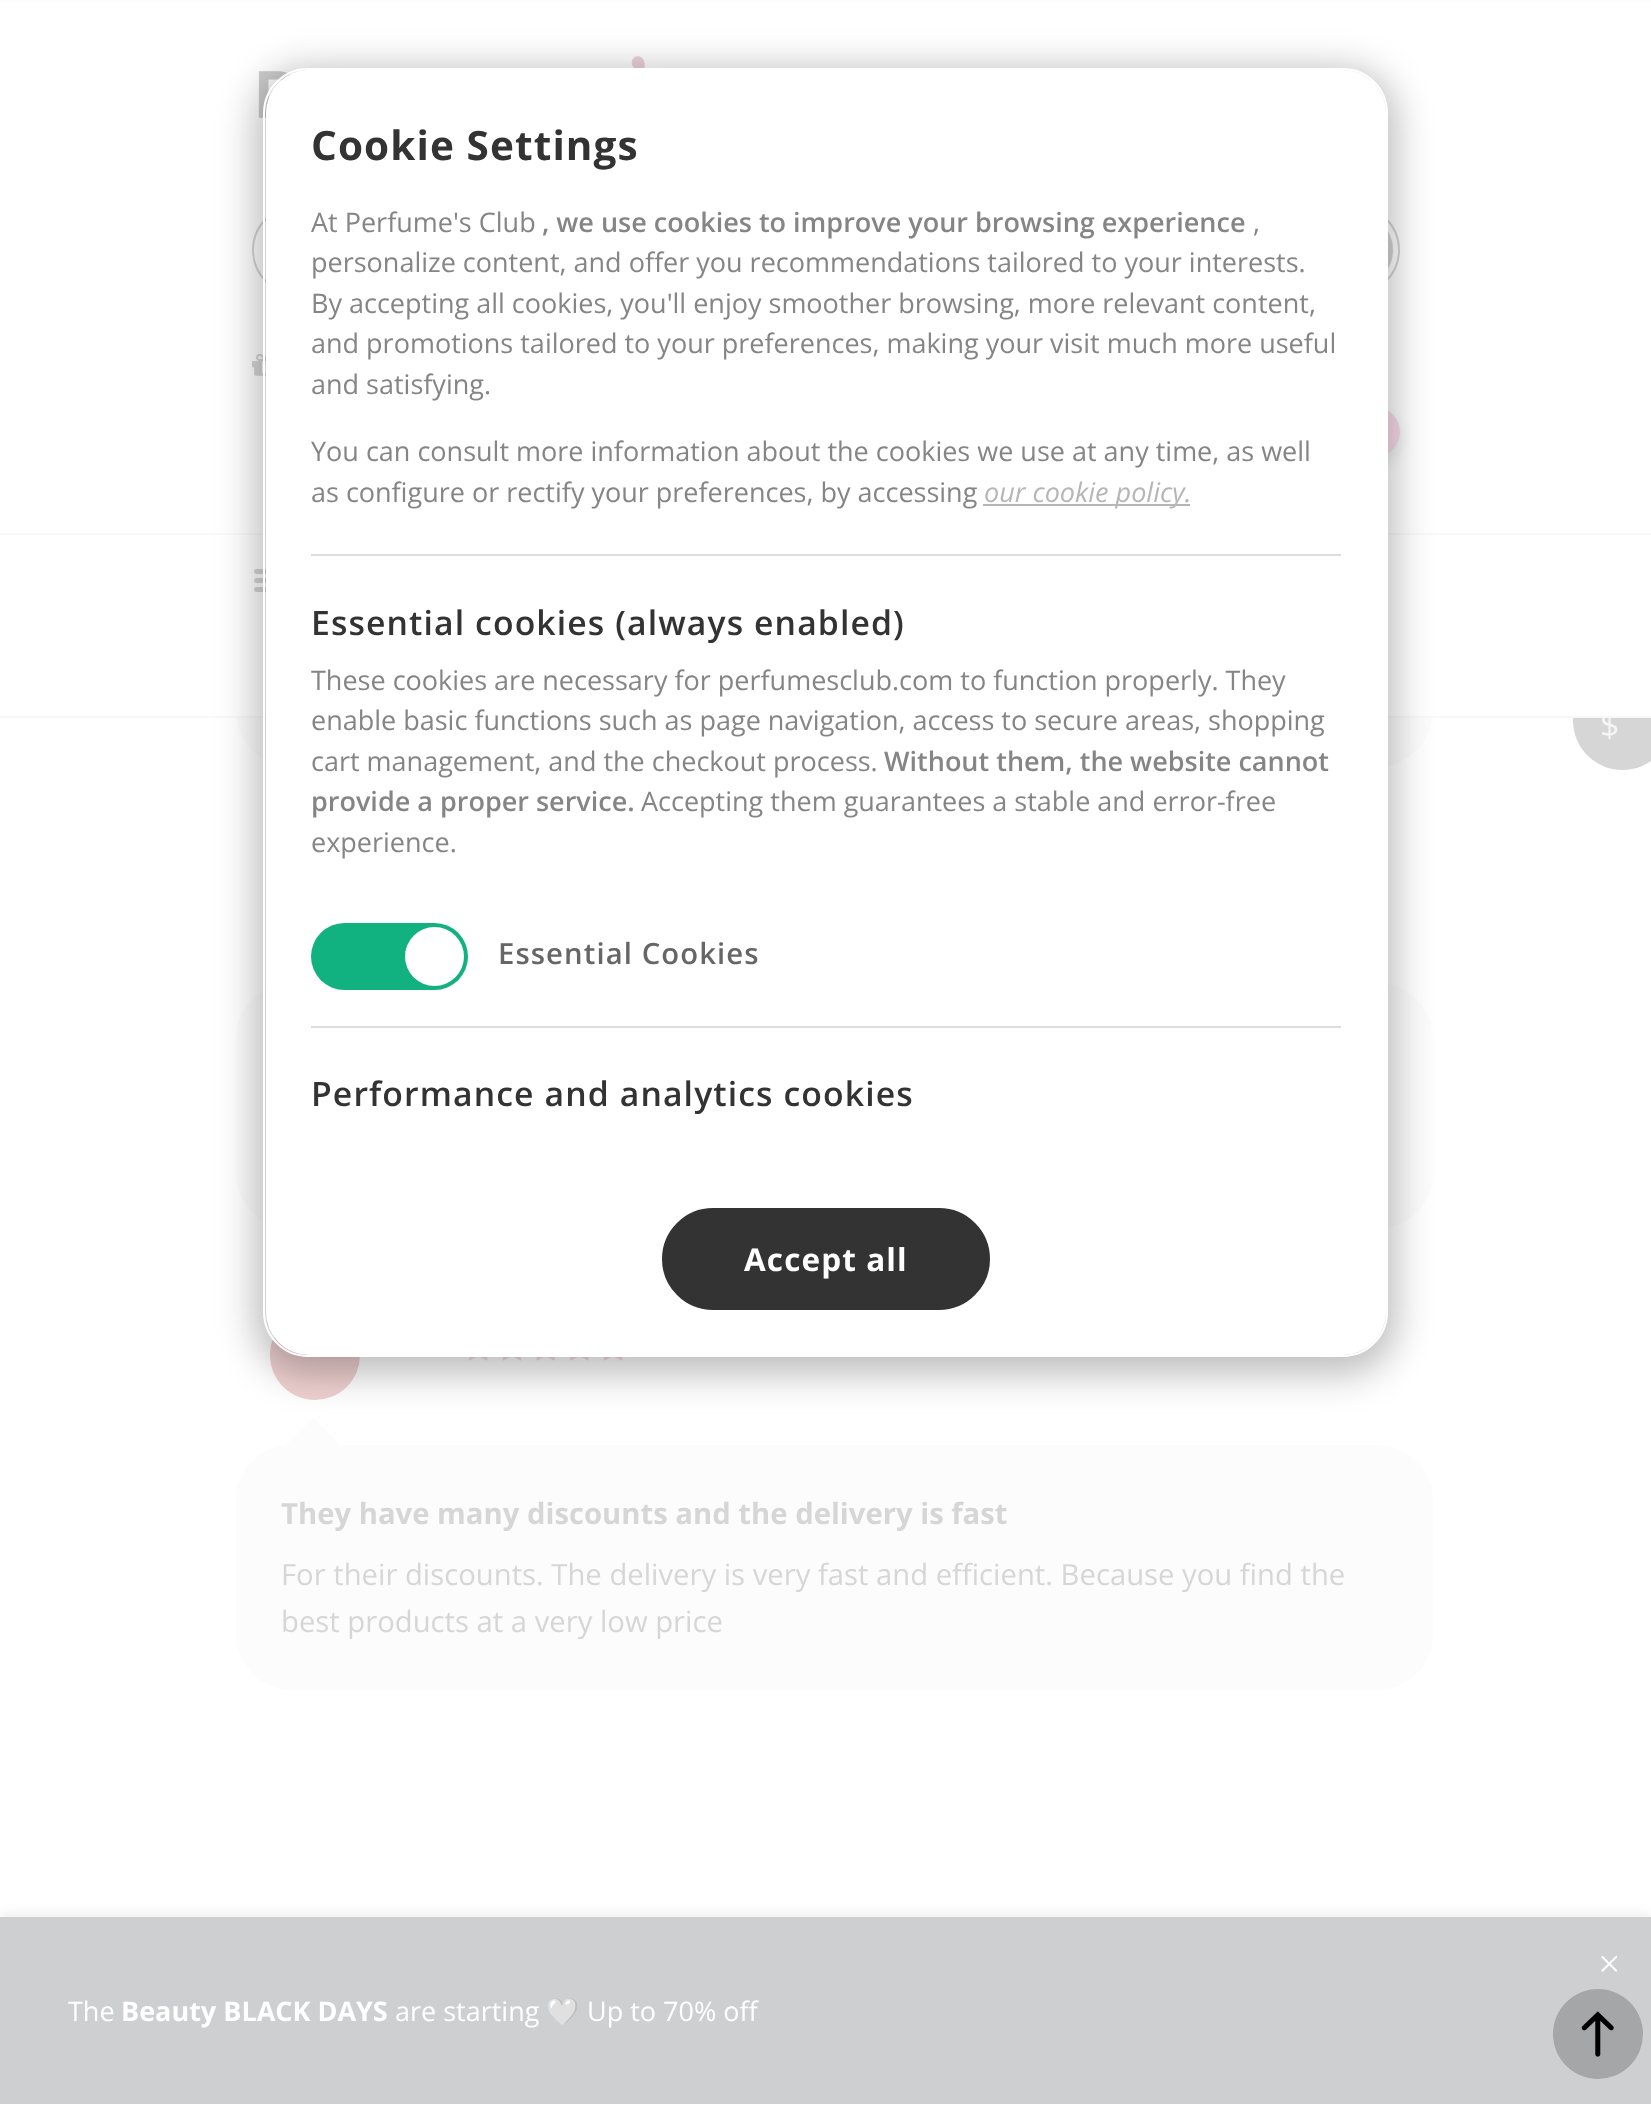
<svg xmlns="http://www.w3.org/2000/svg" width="1651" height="2104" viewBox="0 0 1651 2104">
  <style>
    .t1 { font: 33.75px Open Sans; fill: #f5f5f5; }
    .t2 { font: bold 40.5px Open Sans; letter-spacing: 1.1px; fill: #333; }
    .t3 { font: 27px Open Sans; fill: #858585; }
    .t4 { font: 600 27px Open Sans; fill: #858585; }
    .t5 { font: italic 27px Open Sans; fill: #b6b6b6; }
    .t6 { font: 600 33.75px Open Sans; letter-spacing: 1.1px; fill: #333; }
    .t7 { font: 600 29.25px Open Sans; letter-spacing: 1.1px; fill: #666; }
    .t8 { font: bold 31.5px Open Sans; letter-spacing: 1.1px; fill: #fff; }
    .t9 { font: bold 29.25px Open Sans; fill: #d6d6d6; }
    .t10 { font: 29.25px Open Sans; fill: #d6d6d6; }
    .t11 { font: 300 45px Open Sans; fill: #fff; }
    .t12 { font: 27px Open Sans; fill: #fff; }
    .t13 { font: bold 27px Open Sans; fill: #fff; }
    .t14 { font: 27px Noto Color Emoji; fill: #fff; }
  </style>
  <defs>
    <clipPath id="clip1"><rect x="311" y="115" width="1030" height="1012"/></clipPath>
  </defs>
  <rect width="100%" height="100%" fill="#fff"/>
  <rect x="236" y="522" width="1197" height="245" rx="56" fill="#fcfcfc"/>
  <rect x="260" y="522" width="1149" height="11" fill="#fff"/>
  <rect x="0" y="0" width="1651" height="2" fill="#fcfcfc"/>
  <image x="258" y="56" width="387" height="62" href="images/1.png"/>
  <rect x="253" y="206" width="1146" height="88" rx="44" fill="none" stroke="#d6d6d6" stroke-width="2"/>
  <path d="M1301 212H1355C1376 212 1393 229 1393 250C1393 271 1376 288 1355 288H1301C1297 288 1294 285 1294 281V219C1294 215 1297 212 1301 212Z" fill="#d6d6d6"/>
  <image x="252" y="353" width="14" height="23" href="images/2.png"/>
  <rect x="1350" y="414" width="50" height="50" rx="25" fill="#cccccc66" filter="blur(7px)"/>
  <circle cx="1375" cy="432" r="25" fill="#f9dbe7"/>
  <circle cx="1622.5" cy="720.5" r="49.5" fill="#d6d6d6"/>
  <text x="1600" y="737" class="t1">$</text>
  <rect x="236" y="535" width="1415" height="181" fill="#fff"/>
  <rect x="0" y="533" width="1651" height="2" fill="#f8f8f8"/>
  <rect x="0" y="716" width="1651" height="2" fill="#f8f8f8"/>
  <rect x="254" y="578" width="32" height="5" rx="2.5" fill="#d6d6d6"/>
  <rect x="254" y="569" width="32" height="5" rx="2.5" fill="#d6d6d6"/>
  <rect x="254" y="587" width="32" height="5" rx="2.5" fill="#d6d6d6"/>
  <rect x="236" y="983" width="1197" height="246" rx="56" fill="#fcfcfc"/>
  <circle cx="315" cy="1355" r="45" fill="#efd0d0"/>
  <image x="468" y="1357" width="20" height="4" href="images/3.png"/>
  <image x="502" y="1357" width="20" height="4" href="images/4.png"/>
  <image x="536" y="1357" width="19" height="4" href="images/5.png"/>
  <image x="570" y="1357" width="19" height="4" href="images/6.png"/>
  <image x="603" y="1357" width="20" height="4" href="images/3.png"/>
  <rect x="236" y="1445" width="1197" height="245" rx="56" fill="#fcfcfc"/>
  <path d="M349 1454H277L313 1418Z" fill="#fcfcfc"/>
  <rect x="254" y="68" width="1143" height="1307" rx="54" fill="#00000040" filter="blur(18px)"/>
  <rect x="266" y="70" width="1120" height="1285" rx="43" fill="#fff"/>
  <rect x="264" y="69" width="1123" height="1287" rx="44" fill="none" stroke="#fff" stroke-width="2"/>
  <text x="311" y="160" class="t2">Cookie Settings</text>
  <text x="311" y="232" class="t3">At Perfume's Club</text>
  <text x="542" y="232" class="t4">, we use cookies to improve your browsing experience</text>
  <text x="1253" y="232" class="t3">,</text>
  <text x="311" y="272" class="t3">personalize content, and offer you recommendations tailored to your interests.</text>
  <text x="311" y="313" class="t3">By accepting all cookies, you'll enjoy smoother browsing, more relevant content,</text>
  <text x="311" y="353" class="t3">and promotions tailored to your preferences, making your visit much more useful</text>
  <text x="311" y="394" class="t3">and satisfying.</text>
  <text x="311" y="461" class="t3">You can consult more information about the cookies we use at any time, as well</text>
  <text x="311" y="502" class="t3">as configure or rectify your preferences, by accessing</text>
  <rect x="983" y="504" width="207" height="2" fill="#b6b6b6"/>
  <text x="984" y="502" class="t5">our cookie policy.</text>
  <rect x="311" y="554" width="1030" height="2" fill="#ddd"/>
  <text x="311" y="635" class="t6">Essential cookies (always enabled)</text>
  <g clip-path="url(#clip1)">
    <text x="311" y="690" class="t3">These cookies are necessary for perfumesclub.com to function properly. They</text>
  </g>
  <text x="311" y="730" class="t3">enable basic functions such as page navigation, access to secure areas, shopping</text>
  <text x="311" y="771" class="t3">cart management, and the checkout process.</text>
  <text x="884" y="771" class="t4">Without them, the website cannot</text>
  <text x="311" y="811" class="t4">provide a proper service.</text>
  <text x="641" y="811" class="t3">Accepting them guarantees a stable and error-free</text>
  <text x="311" y="852" class="t3">experience.</text>
  <rect x="311" y="923" width="157" height="67" rx="33.5" fill="#11b27f"/>
  <circle cx="434.5" cy="956.5" r="29.5" fill="#fff"/>
  <text x="498" y="964" class="t7">Essential Cookies</text>
  <rect x="311" y="1026" width="1030" height="2" fill="#ddd"/>
  <text x="311" y="1106" class="t6">Performance and analytics cookies</text>
  <rect x="664.5" y="1210.5" width="323" height="97" rx="48.5" fill="#333" stroke="#333" stroke-width="5"/>
  <text x="744" y="1271" class="t8">Accept all</text>
  <text x="281" y="1524" class="t9">They have many discounts and the delivery is fast</text>
  <text x="281" y="1585" class="t10">For their discounts. The delivery is very fast and efficient. Because you find the</text>
  <text x="281" y="1632" class="t10">best products at a very low price</text>
  <rect x="0" y="1913" width="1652" height="189" fill="#cccccc4d" filter="blur(5.5px)"/>
  <rect x="0" y="1917" width="1651" height="187" fill="#cecfd1"/>
  <text x="1589" y="1966" transform="rotate(45 1589 1966)" class="t11">+</text>
  <text x="68" y="2021" class="t12">The</text>
  <text x="121" y="2021" class="t13">Beauty BLACK DAYS</text>
  <text x="395" y="2021" class="t12">are starting</text>
  <text x="546" y="2021" class="t14">🤍</text>
  <text x="587" y="2021" class="t12">Up to 70% off</text>
  <circle cx="1598" cy="2034" r="45" fill="#a4a6a7"/>
  <image x="1581" y="2011" width="33" height="46" href="images/7.png"/>
</svg>
